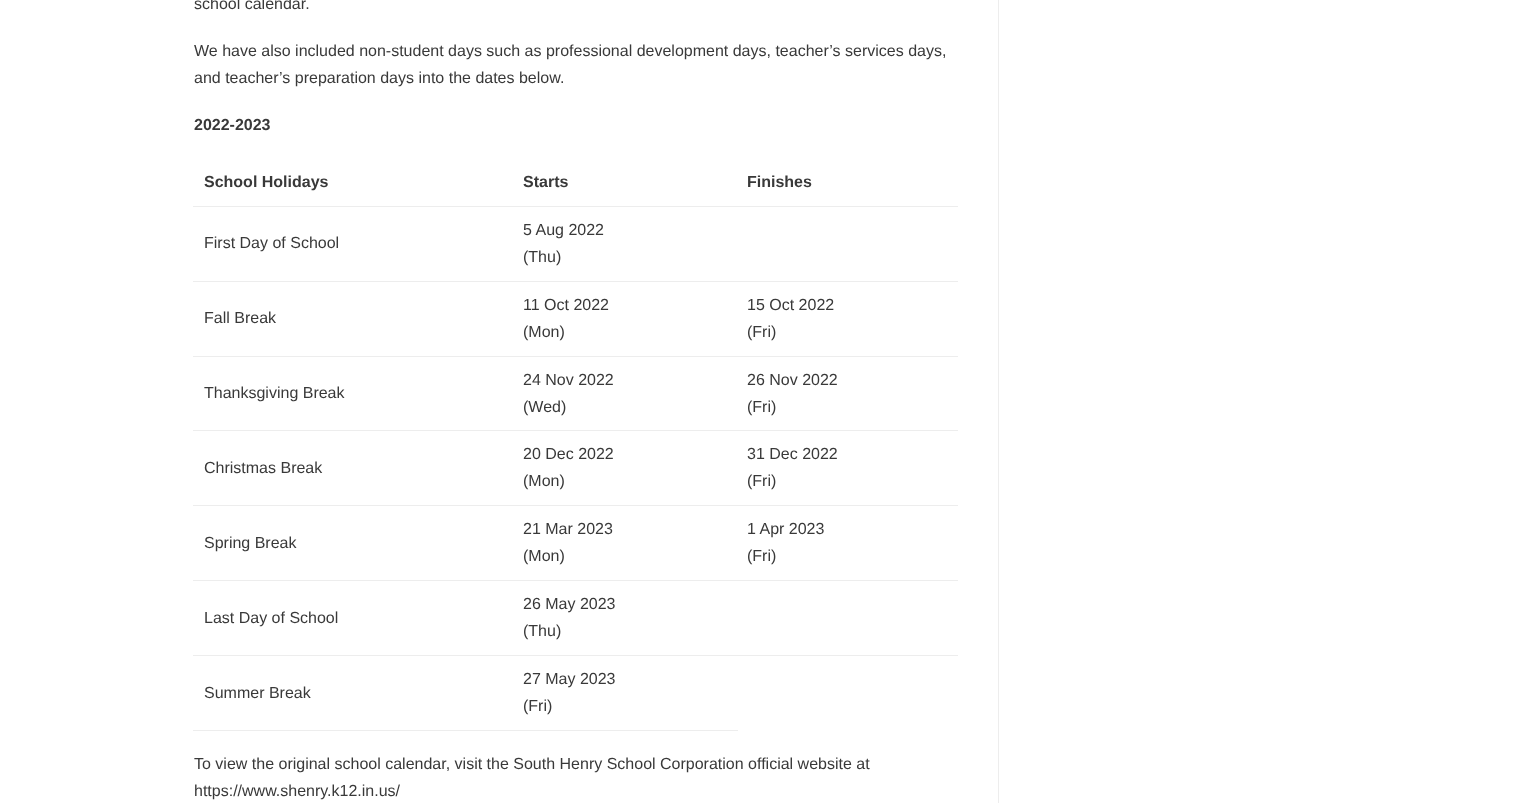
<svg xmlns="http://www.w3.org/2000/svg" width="1527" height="803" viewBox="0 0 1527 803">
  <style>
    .t1 { font: 16px Liberation Sans; fill: #393939; }
    .t2 { font: bold 16px Liberation Sans; fill: #393939; }
  </style>
  <rect width="100%" height="100%" fill="#fff"/>
  <text x="194" y="9" class="t1">school calendar.</text>
  <text x="194" y="56" class="t1">We have also included non-student days such as professional development days, teacher’s services days,</text>
  <text x="194" y="83" class="t1">and teacher’s preparation days into the dates below.</text>
  <text x="194" y="130" class="t2">2022-2023</text>
  <text x="204" y="187" class="t2">School Holidays</text>
  <text x="523" y="187" class="t2">Starts</text>
  <rect x="193" y="206" width="765" height="1" fill="#ededed"/>
  <text x="747" y="187" class="t2">Finishes</text>
  <text x="204" y="248" class="t1">First Day of School</text>
  <text x="523" y="235" class="t1">5 Aug 2022</text>
  <text x="523" y="262" class="t1">(Thu)</text>
  <rect x="193" y="281" width="765" height="1" fill="#ededed"/>
  <text x="204" y="323" class="t1">Fall Break</text>
  <text x="523" y="310" class="t1">11 Oct 2022</text>
  <text x="523" y="337" class="t1">(Mon)</text>
  <rect x="193" y="356" width="765" height="1" fill="#ededed"/>
  <text x="747" y="310" class="t1">15 Oct 2022</text>
  <text x="747" y="337" class="t1">(Fri)</text>
  <text x="204" y="398" class="t1">Thanksgiving Break</text>
  <text x="523" y="385" class="t1">24 Nov 2022</text>
  <text x="523" y="412" class="t1">(Wed)</text>
  <rect x="193" y="430" width="765" height="1" fill="#ededed"/>
  <text x="747" y="385" class="t1">26 Nov 2022</text>
  <text x="747" y="412" class="t1">(Fri)</text>
  <text x="204" y="473" class="t1">Christmas Break</text>
  <text x="523" y="459" class="t1">20 Dec 2022</text>
  <text x="523" y="486" class="t1">(Mon)</text>
  <rect x="193" y="505" width="765" height="1" fill="#ededed"/>
  <text x="747" y="459" class="t1">31 Dec 2022</text>
  <text x="747" y="486" class="t1">(Fri)</text>
  <text x="204" y="548" class="t1">Spring Break</text>
  <text x="523" y="534" class="t1">21 Mar 2023</text>
  <text x="523" y="561" class="t1">(Mon)</text>
  <rect x="193" y="580" width="765" height="1" fill="#ededed"/>
  <text x="747" y="534" class="t1">1 Apr 2023</text>
  <text x="747" y="561" class="t1">(Fri)</text>
  <text x="204" y="623" class="t1">Last Day of School</text>
  <text x="523" y="609" class="t1">26 May 2023</text>
  <text x="523" y="636" class="t1">(Thu)</text>
  <rect x="193" y="655" width="765" height="1" fill="#ededed"/>
  <text x="204" y="698" class="t1">Summer Break</text>
  <rect x="193" y="730" width="545" height="1" fill="#ededed"/>
  <text x="523" y="684" class="t1">27 May 2023</text>
  <text x="523" y="711" class="t1">(Fri)</text>
  <text x="194" y="769" class="t1">To view the original school calendar, visit the South Henry School Corporation official website at</text>
  <text x="194" y="796" class="t1">https://www.shenry.k12.in.us/</text>
  <rect x="998" y="0" width="1" height="803" fill="#ededed"/>
</svg>
